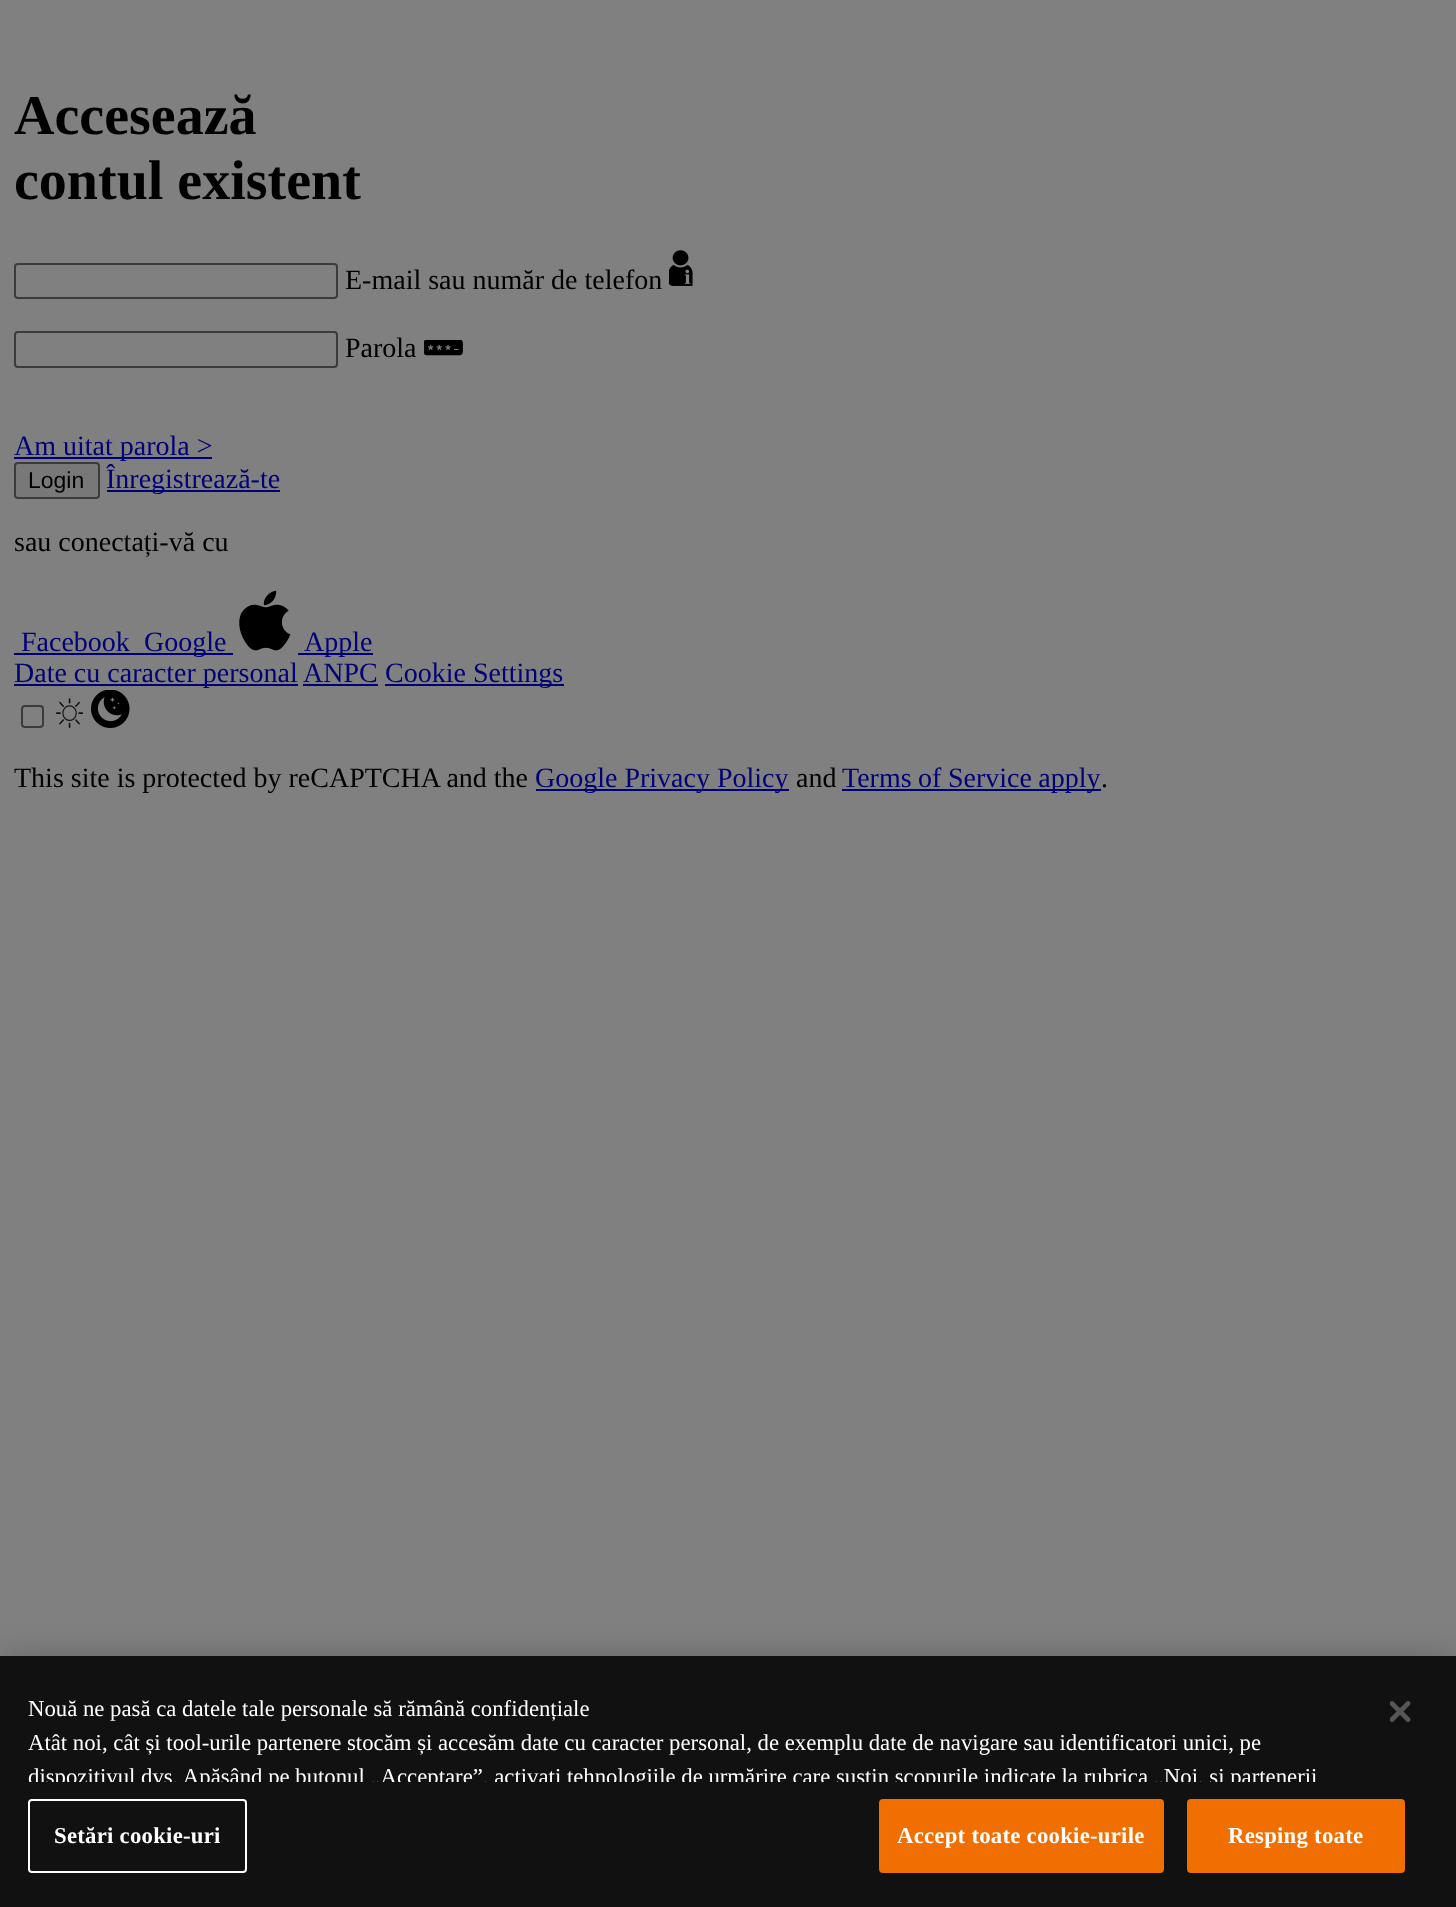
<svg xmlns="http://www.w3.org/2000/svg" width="1456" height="1907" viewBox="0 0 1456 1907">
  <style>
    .t1 { font: bold 56px Liberation Serif; fill: #000; }
    .t2 { font: 28px Liberation Serif; fill: #000; }
    .t3 { font: 28px Liberation Serif; fill: #007; }
    .t4 { font: 23px Liberation Sans; fill: #000; }
    .t5 { font: 22.75px Liberation Serif; fill: #fff; }
    .t6 { font: bold 22.75px Liberation Serif; letter-spacing: 0.25px; fill: #fff; }
  </style>
  <defs>
    <clipPath id="clip1"><rect x="28" y="1691" width="1327" height="91"/></clipPath>
  </defs>
  <rect width="100%" height="100%" fill="#808080"/>
  <text x="14" y="134" class="t1">Accesează</text>
  <text x="14" y="199" class="t1">contul existent</text>
  <rect x="15" y="264" width="322" height="34" rx="3" fill="none" stroke="#3b3b3b" stroke-width="2"/>
  <text x="345" y="289" class="t2">E-mail sau număr de telefon</text>
  <image x="669" y="250" width="24" height="36" href="images/1.png"/>
  <rect x="15" y="332" width="322" height="35" rx="3" fill="none" stroke="#3b3b3b" stroke-width="2"/>
  <text x="345" y="357" class="t2">Parola</text>
  <image x="424" y="340" width="39" height="16" href="images/2.png"/>
  <rect x="14" y="457" width="198" height="2" fill="#007"/>
  <text x="14" y="455" class="t3">Am uitat parola &gt;</text>
  <rect x="15" y="463" width="84" height="35" rx="3" fill="#787878" stroke="#3b3b3b" stroke-width="2"/>
  <text x="28" y="488" class="t4">Login</text>
  <rect x="107" y="490" width="173" height="2" fill="#007"/>
  <text x="106" y="488" class="t3">Înregistrează-te</text>
  <text x="14" y="551" class="t2">sau conectați-vă cu</text>
  <text x="21" y="651" class="t3">Facebook</text>
  <rect x="14" y="653" width="219" height="2" fill="#007"/>
  <text x="144" y="651" class="t3">Google</text>
  <image x="239" y="590" width="52" height="61" href="images/3.png"/>
  <rect x="298" y="653" width="75" height="2" fill="#007"/>
  <text x="304" y="651" class="t3">Apple</text>
  <rect x="14" y="684" width="284" height="2" fill="#007"/>
  <text x="14" y="682" class="t3">Date cu caracter personal</text>
  <text x="303" y="682" class="t3">ANPC</text>
  <rect x="303" y="684" width="75" height="2" fill="#007"/>
  <rect x="385" y="684" width="179" height="2" fill="#007"/>
  <text x="385" y="682" class="t3">Cookie Settings</text>
  <rect x="22" y="706" width="21" height="21" rx="3" fill="none" stroke="#3b3b3b" stroke-width="2"/>
  <image x="56" y="698" width="28" height="30" href="images/4.png"/>
  <image x="91" y="690" width="39" height="38" href="images/5.png"/>
  <text x="14" y="787" class="t2">This site is protected by reCAPTCHA and the</text>
  <rect x="536" y="789" width="253" height="2" fill="#007"/>
  <text x="535" y="787" class="t3">Google Privacy Policy</text>
  <text x="796" y="787" class="t2">and</text>
  <rect x="842" y="789" width="259" height="2" fill="#007"/>
  <text x="842" y="787" word-spacing="-0.5" class="t3">Terms of Service apply</text>
  <text x="1101" y="787" class="t2">.</text>
  <rect x="0" y="1656" width="1456" height="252" fill="#00000033" filter="blur(16px)"/>
  <rect x="0" y="1656" width="1456" height="251" fill="#111"/>
  <text x="28" y="1716" class="t5">Nouă ne pasă ca datele tale personale să rămână confidențiale</text>
  <text x="28" y="1750" class="t5">Atât noi, cât și tool-urile partenere stocăm și accesăm date cu caracter personal, de exemplu date de navigare sau identificatori unici, pe</text>
  <g clip-path="url(#clip1)">
    <text x="28" y="1784" class="t5">dispozitivul dvs. Apăsând pe butonul „Acceptare”, activați tehnologiile de urmărire care susțin scopurile indicate la rubrica „Noi, și partenerii</text>
  </g>
  <rect x="29" y="1800" width="217" height="72" rx="3" fill="none" stroke="#fff" stroke-width="2"/>
  <text x="54" y="1843" class="t6">Setări cookie-uri</text>
  <rect x="880" y="1800" width="283" height="72" rx="3" fill="#f16e00" stroke="#f16e00" stroke-width="2"/>
  <text x="897" y="1843" class="t6">Accept toate cookie-urile</text>
  <rect x="1188" y="1800" width="216" height="72" rx="3" fill="#f16e00" stroke="#f16e00" stroke-width="2"/>
  <text x="1228" y="1843" class="t6">Resping toate</text>
  <image x="1390" y="1701" width="21" height="21" href="images/6.png"/>
</svg>
